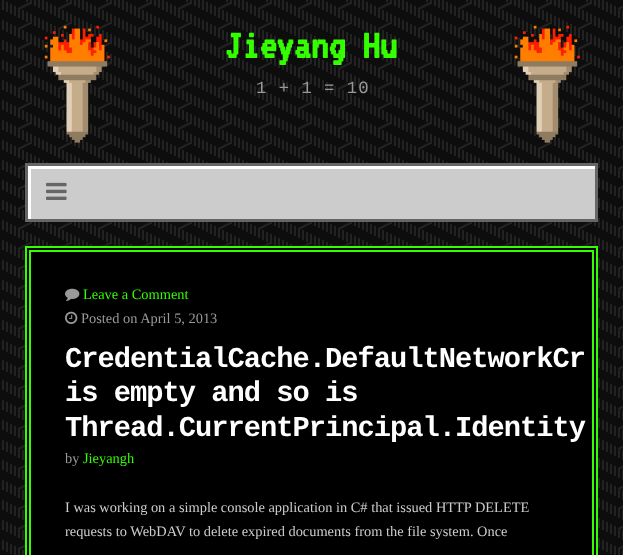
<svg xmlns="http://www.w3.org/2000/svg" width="623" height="555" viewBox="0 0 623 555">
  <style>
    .t1 { font: bold 43px 'VT323'; fill: #3f0; }
    .t2 { font: 17.25px Liberation Mono; letter-spacing: 1px; fill: #999; }
    .t3 { font: 14.4px Liberation Serif; fill: #3f0; }
    .t4 { font: 14.4px Liberation Serif; fill: #999; }
    .t5 { font: bold 28.75px Liberation Mono; letter-spacing: -1px; fill: #fff; }
    .t6 { font: 14.4px Liberation Serif; fill: #ccc; }
  </style>
  <defs>
    <clipPath id="clip1"><rect x="28" y="166" width="567" height="53"/></clipPath>
  </defs>
  <rect width="100%" height="100%" fill="#fff"/>
  <image x="0" y="0" width="623" height="555" href="images/1.png"/>
  <image x="44" y="25" width="66" height="118" href="images/2.png"/>
  <text x="225" y="58" class="t1">Jieyang Hu</text>
  <text x="256" y="93" class="t2">1 + 1 = 10</text>
  <image x="514" y="25" width="66" height="118" href="images/3.png"/>
  <rect x="31" y="169" width="564" height="50" fill="#ccc"/>
  <g clip-path="url(#clip1)">
    <path d="M-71 67H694V318H-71ZM31 169H598V222H31Z" fill="#fff" fill-rule="evenodd"/>
  </g>
  <rect x="26.5" y="164.5" width="570" height="56" fill="none" stroke="#666" stroke-width="3"/>
  <image x="46" y="182" width="21" height="18" href="images/4.png"/>
  <rect x="26" y="247" width="571" height="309" fill="#000" stroke="#3f0" stroke-width="2"/>
  <rect x="30" y="251" width="563" height="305" fill="none" stroke="#3f0" stroke-width="2"/>
  <image x="65" y="288" width="15" height="13" href="images/5.png"/>
  <text x="83" y="299" class="t3">Leave a Comment</text>
  <image x="65" y="311" width="13" height="13" href="images/6.png"/>
  <text x="81" y="323" class="t4">Posted on April 5, 2013</text>
  <text x="65" y="367" class="t5">CredentialCache.DefaultNetworkCr</text>
  <text x="65" y="401" class="t5">is empty and so is</text>
  <text x="65" y="436" class="t5">Thread.CurrentPrincipal.Identity</text>
  <text x="65" y="463" class="t4">by</text>
  <text x="83" y="463" class="t3">Jieyangh</text>
  <text x="65" y="512" class="t6">I was working on a simple console application in C# that issued HTTP DELETE</text>
  <text x="65" y="536" class="t6">requests to WebDAV to delete expired documents from the file system. Once</text>
</svg>
